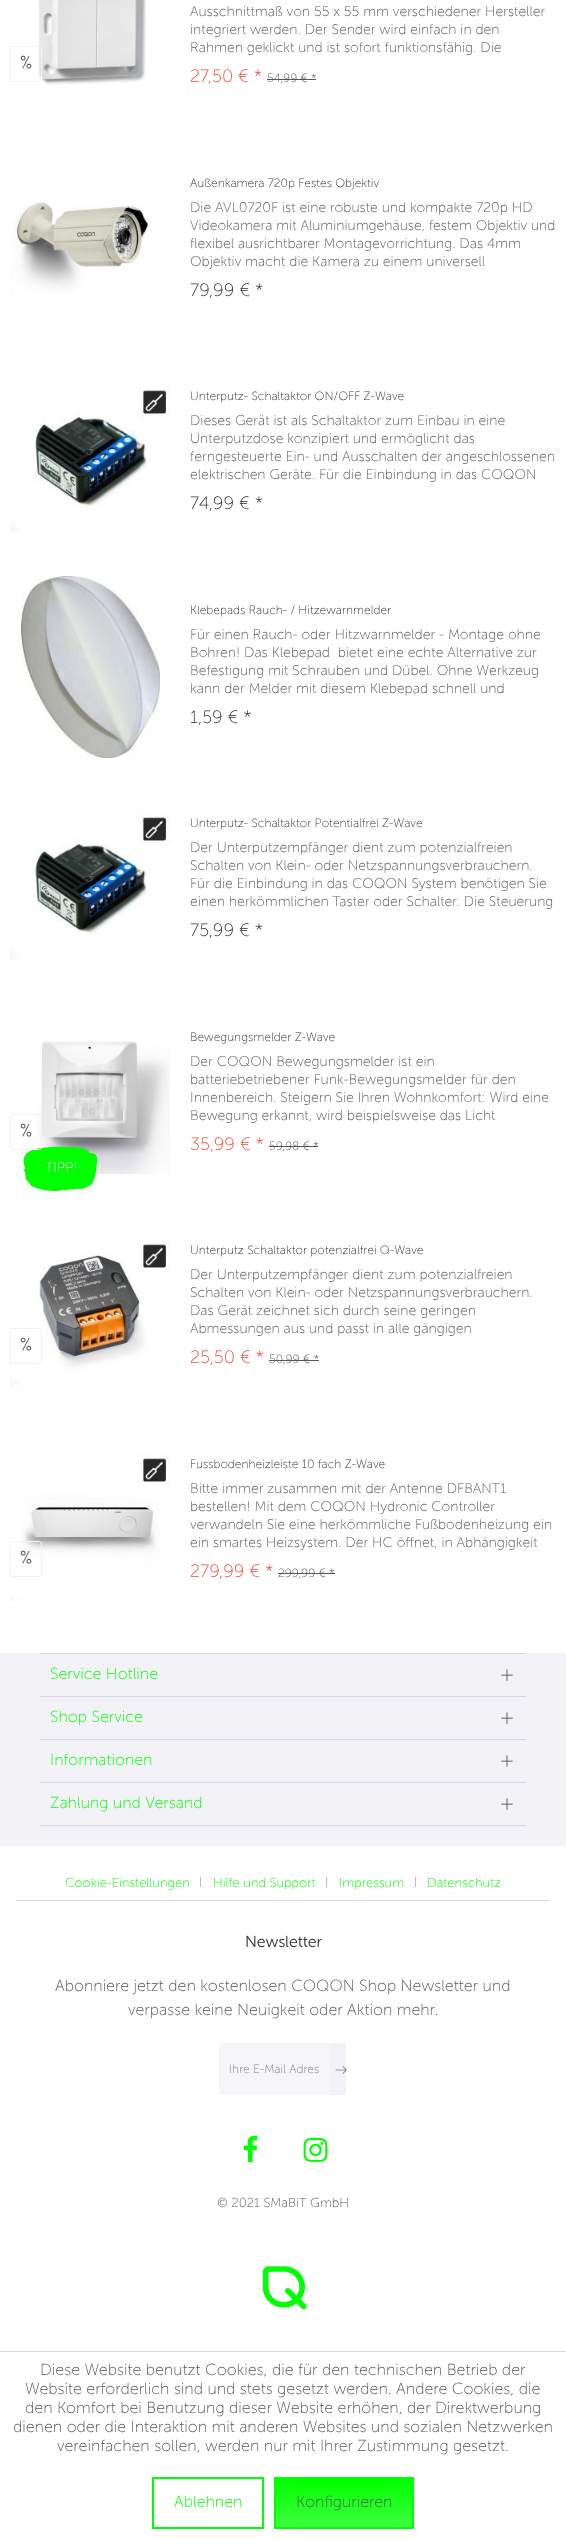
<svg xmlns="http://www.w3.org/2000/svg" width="566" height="2539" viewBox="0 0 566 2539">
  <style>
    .t1 { font: 14px 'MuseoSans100'; fill: #55565a; }
    .t2 { font: 18px 'MuseoSans100'; fill: #e74c3c; }
    .t3 { font: 12px 'MuseoSans100'; fill: #55565a; }
    .t4 { font: 12px 'MuseoSans100'; fill: #303033; }
    .t5 { font: 18px 'MuseoSans100'; fill: #303033; }
    .t6 { font: 14px 'MuseoSans100'; fill: #fff; }
    .t7 { font: 16px 'MuseoSans100'; fill: #0f0; }
    .t8 { font: 13px 'MuseoSans100'; fill: #0f0; }
    .t9 { font: 16px 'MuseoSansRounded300'; fill: #303033; }
    .t10 { font: 16px 'MuseoSans100'; fill: #55565a; }
    .t11 { font: 12px 'MuseoSans100'; fill: #7a7c81; }
    .t12 { font: 13px 'MuseoSans100'; fill: #55565a; }
  </style>
  <defs>
    <linearGradient id="g1" gradientUnits="userSpaceOnUse" x1="344" y1="2479" x2="344" y2="2527"><stop offset="0" stop-color="#0f0"/><stop offset="1" stop-color="#3dff3d"/></linearGradient>
  </defs>
  <rect width="100%" height="100%" fill="#fff"/>
  <image x="38" y="0" width="109" height="86" href="images/2.png"/>
  <path d="M10.5 46.5H39C40.5 46.5 41.5 47.5 41.5 49V79C41.5 80.5 40.5 81.5 39 81.5H10.5Z" fill="none" stroke="#f3f3f7"/>
  <image x="20" y="55" width="12" height="14" href="images/1.png"/>
  <text x="190" y="16" class="t1">Ausschnittmaß von 55 x 55 mm verschiedener Hersteller</text>
  <text x="190" y="34" class="t1">integriert werden. Der Sender wird einfach in den</text>
  <text x="190" y="52" class="t1">Rahmen geklickt und ist sofort funktionsfähig. Die</text>
  <text x="190" y="82" class="t2">27,50 € *</text>
  <text x="267" y="82" class="t3">54,99 € *</text>
  <rect x="267" y="79" width="49" height="1" fill="#55565a"/>
  <text x="190" y="187" class="t4">Außenkamera 720p Festes Objektiv</text>
  <image x="10" y="201" width="141" height="94" href="images/3.png"/>
  <text x="190" y="212" class="t1">Die AVL0720F ist eine robuste und kompakte 720p HD</text>
  <text x="190" y="230" class="t1">Videokamera mit Aluminiumgehäuse, festem Objektiv und</text>
  <text x="190" y="248" class="t1">flexibel ausrichtbarer Montagevorrichtung. Das 4mm</text>
  <text x="190" y="266" class="t1">Objektiv macht die Kamera zu einem universell</text>
  <text x="190" y="296" class="t5">79,99 € *</text>
  <image x="10" y="386" width="160" height="147" href="images/4.png"/>
  <text x="190" y="400" class="t4">Unterputz- Schaltaktor ON/OFF Z-Wave</text>
  <text x="190" y="425" class="t1">Dieses Gerät ist als Schaltaktor zum Einbau in eine</text>
  <text x="190" y="443" class="t1">Unterputzdose konzipiert und ermöglicht das</text>
  <text x="190" y="461" class="t1">ferngesteuerte Ein- und Ausschalten der angeschlossenen</text>
  <text x="190" y="479" class="t1">elektrischen Geräte. Für die Einbindung in das COQON</text>
  <text x="190" y="509" class="t5">74,99 € *</text>
  <image x="21" y="576" width="139" height="182" href="images/5.png"/>
  <text x="190" y="614" class="t4">Klebepads Rauch- / Hitzewarnmelder</text>
  <text x="190" y="639" class="t1">Für einen Rauch- oder Hitzwarnmelder - Montage ohne</text>
  <text x="190" y="657" class="t1" xml:space="preserve">Bohren! Das Klebepad  bietet eine echte Alternative zur</text>
  <text x="190" y="675" class="t1">Befestigung mit Schrauben und Dübel. Ohne Werkzeug</text>
  <text x="190" y="693" class="t1">kann der Melder mit diesem Klebepad schnell und</text>
  <text x="190" y="723" class="t5">1,59 € *</text>
  <image x="10" y="813" width="160" height="147" href="images/4.png"/>
  <text x="190" y="827" class="t4">Unterputz- Schaltaktor Potentialfrei Z-Wave</text>
  <text x="190" y="852" class="t1">Der Unterputzempfänger dient zum potenzialfreien</text>
  <text x="190" y="870" class="t1">Schalten von Klein- oder Netzspannungsverbrauchern.</text>
  <text x="190" y="888" class="t1">Für die Einbindung in das COQON System benötigen Sie</text>
  <text x="190" y="906" class="t1">einen herkömmlichen Taster oder Schalter. Die Steuerung</text>
  <text x="190" y="936" class="t5">75,99 € *</text>
  <text x="190" y="1041" class="t4">Bewegungsmelder Z-Wave</text>
  <image x="36" y="1041" width="134" height="133" href="images/6.png"/>
  <text x="190" y="1066" class="t1">Der COQON Bewegungsmelder ist ein</text>
  <text x="190" y="1084" class="t1">batteriebetriebener Funk-Bewegungsmelder für den</text>
  <text x="190" y="1102" class="t1">Innenbereich. Steigern Sie Ihren Wohnkomfort: Wird eine</text>
  <text x="190" y="1120" class="t1">Bewegung erkannt, wird beispielsweise das Licht</text>
  <text x="190" y="1150" class="t2">35,99 € *</text>
  <text x="269" y="1150" class="t3">59,98 € *</text>
  <rect x="269" y="1146" width="49" height="1" fill="#55565a"/>
  <image x="23" y="1146" width="75" height="45" href="images/7.png"/>
  <path d="M10.5 1114.5H39C40.5 1114.5 41.5 1115.5 41.5 1117V1147C41.5 1148.5 40.5 1149.5 39 1149.5H10.5Z" fill="none" stroke="#f3f3f7"/>
  <image x="20" y="1123" width="12" height="14" href="images/1.png"/>
  <text x="45" y="1172" class="t6">TIPP!</text>
  <image x="10" y="1240" width="160" height="147" href="images/8.png"/>
  <path d="M10.5 1328.5H39C40.5 1328.5 41.5 1329.5 41.5 1331V1361C41.5 1362.5 40.5 1363.5 39 1363.5H10.5Z" fill="none" stroke="#f3f3f7"/>
  <image x="20" y="1337" width="12" height="14" href="images/1.png"/>
  <text x="190" y="1254" class="t4">Unterputz Schaltaktor potenzialfrei Q-Wave</text>
  <text x="190" y="1279" class="t1">Der Unterputzempfänger dient zum potenzialfreien</text>
  <text x="190" y="1297" class="t1">Schalten von Klein- oder Netzspannungsverbrauchern.</text>
  <text x="190" y="1315" class="t1">Das Gerät zeichnet sich durch seine geringen</text>
  <text x="190" y="1333" class="t1">Abmessungen aus und passt in alle gängigen</text>
  <text x="190" y="1363" class="t2">25,50 € *</text>
  <text x="269" y="1363" class="t3">50,99 € *</text>
  <rect x="269" y="1360" width="50" height="1" fill="#55565a"/>
  <image x="10" y="1454" width="160" height="147" href="images/10.png"/>
  <path d="M10.5 1541.5H39C40.5 1541.5 41.5 1542.5 41.5 1544V1574C41.5 1575.5 40.5 1576.5 39 1576.5H10.5Z" fill="none" stroke="#f3f3f7"/>
  <image x="20" y="1550" width="12" height="14" href="images/9.png"/>
  <text x="190" y="1468" class="t4">Fussbodenheizleiste 10 fach Z-Wave</text>
  <text x="190" y="1493" class="t1">Bitte immer zusammen mit der Antenne DFBANT1</text>
  <text x="190" y="1511" class="t1">bestellen! Mit dem COQON Hydronic Controller</text>
  <text x="190" y="1529" class="t1">verwandeln Sie eine herkömmliche Fußbodenheizung ein</text>
  <text x="190" y="1547" class="t1">ein smartes Heizsystem. Der HC öffnet, in Abhängigkeit</text>
  <text x="190" y="1577" class="t2">279,99 € *</text>
  <text x="278" y="1577" class="t3">299,99 € *</text>
  <rect x="278" y="1573" width="57" height="1" fill="#55565a"/>
  <rect x="0" y="1653" width="566" height="193" fill="#f3f3f7"/>
  <rect x="40" y="1653" width="486" height="1" fill="#d7d7e5"/>
  <text x="50" y="1679" class="t7">Service Hotline</text>
  <image x="501" y="1669" width="12" height="12" href="images/11.png"/>
  <rect x="40" y="1696" width="486" height="1" fill="#d7d7e5"/>
  <text x="50" y="1722" class="t7">Shop Service</text>
  <image x="501" y="1712" width="12" height="12" href="images/11.png"/>
  <rect x="40" y="1739" width="486" height="1" fill="#d7d7e5"/>
  <text x="50" y="1765" class="t7">Informationen</text>
  <image x="501" y="1755" width="12" height="12" href="images/11.png"/>
  <rect x="40" y="1782" width="486" height="1" fill="#d7d7e5"/>
  <rect x="40" y="1825" width="486" height="1" fill="#d7d7e5"/>
  <text x="50" y="1808" class="t7">Zahlung und Versand</text>
  <image x="501" y="1798" width="12" height="12" href="images/11.png"/>
  <text x="65" y="1887" class="t8">Cookie-Einstellungen</text>
  <rect x="200" y="1877" width="1" height="10" fill="#b9b9d0"/>
  <text x="213" y="1887" class="t8">Hilfe und Support</text>
  <rect x="326" y="1877" width="1" height="10" fill="#b9b9d0"/>
  <text x="339" y="1887" class="t8">Impressum</text>
  <rect x="415" y="1877" width="1" height="10" fill="#b9b9d0"/>
  <text x="427" y="1887" class="t8">Datenschutz</text>
  <rect x="16" y="1900" width="534" height="1" fill="#d7d7e5"/>
  <text x="245" y="1947" class="t9">Newsletter</text>
  <text x="55" y="1991" class="t10">Abonniere jetzt den kostenlosen COQON Shop Newsletter und</text>
  <text x="128" y="2015" class="t10">verpasse keine Neuigkeit oder Aktion mehr.</text>
  <rect x="219" y="2043" width="111" height="52" fill="#f6f6f9"/>
  <text x="229" y="2073" class="t11">Ihre E-Mail Adres</text>
  <rect x="330" y="2043" width="16" height="52" fill="#f3f3f7"/>
  <image x="335" y="2066" width="12" height="8" href="images/12.png"/>
  <image x="243" y="2135" width="15" height="27" href="images/13.png"/>
  <image x="303" y="2138" width="25" height="24" href="images/14.png"/>
  <text x="217" y="2207" class="t12">© 2021 SMaBiT GmbH</text>
  <image x="262" y="2266" width="45" height="44" href="images/15.png"/>
  <rect x="0" y="2351" width="566" height="1" fill="#d7d7e5"/>
  <text x="40" y="2375" class="t10">Diese Website benutzt Cookies, die für den technischen Betrieb der</text>
  <text x="25" y="2394" class="t10">Website erforderlich sind und stets gesetzt werden. Andere Cookies, die</text>
  <text x="25" y="2413" class="t10">den Komfort bei Benutzung dieser Website erhöhen, der Direktwerbung</text>
  <text x="13" y="2432" class="t10">dienen oder die Interaktion mit anderen Websites und sozialen Netzwerken</text>
  <text x="57" y="2451" class="t10">vereinfachen sollen, werden nur mit Ihrer Zustimmung gesetzt.</text>
  <rect x="153" y="2478" width="110" height="50" fill="none" stroke="#0f0" stroke-width="2"/>
  <text x="174" y="2507" class="t7">Ablehnen</text>
  <rect x="276" y="2479" width="136" height="48" fill="url(#g1)"/>
  <rect x="275" y="2478" width="138" height="50" fill="none" stroke="#0f0" stroke-width="2"/>
  <text x="296" y="2507" class="t10">Konfigurieren</text>
</svg>
